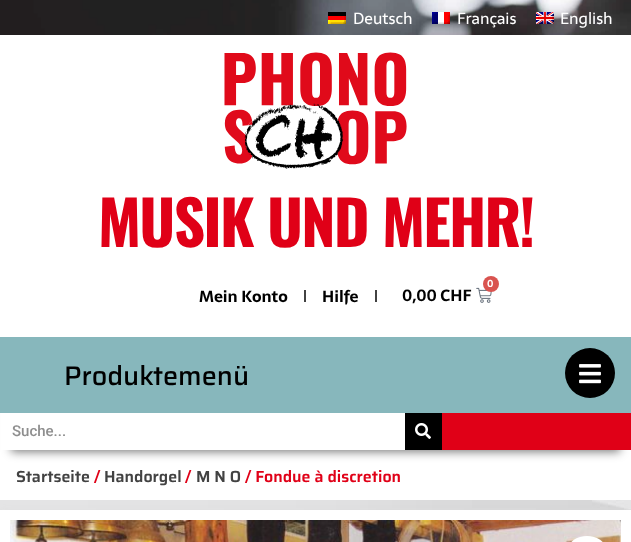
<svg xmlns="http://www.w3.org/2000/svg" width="631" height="542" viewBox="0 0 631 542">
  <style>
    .t1 { font: 16px Sarala; fill: #fff; }
    .t2 { font: bold 61.25px Oswald; letter-spacing: -1.75px; fill: #e00017; }
    .t3 { font: bold 16px Sarala; fill: #000; }
    .t4 { font: bold 10px Sarala; fill: #fff; }
    .t5 { font: 500 27px Saira; fill: #000; }
    .t6 { font: 500 15px Roboto; fill: #8e8e8e; }
    .t7 { font: 600 16px Saira; fill: #424242; }
    .t8 { font: 600 16px Saira; fill: #e00017; }
  </style>
  <rect width="100%" height="100%" fill="#fff"/>
  <image x="0" y="0" width="631" height="35" href="images/1.png"/>
  <image x="328" y="12" width="18" height="12" href="images/2.png"/>
  <text x="353" y="24" class="t1">Deutsch</text>
  <image x="432" y="12" width="18" height="12" href="images/3.png"/>
  <text x="457" y="24" class="t1">Français</text>
  <image x="536" y="12" width="18" height="12" href="images/4.png"/>
  <text x="560" y="24" class="t1">English</text>
  <image x="224" y="52" width="183" height="117" href="images/5.png"/>
  <text x="98" y="247" class="t2">MUSIK UND MEHR!</text>
  <text x="199" y="302" class="t3">Mein Konto</text>
  <rect x="304" y="290" width="2" height="12" fill="#424242"/>
  <text x="322" y="302" class="t3">Hilfe</text>
  <rect x="375" y="290" width="2" height="12" fill="#424242"/>
  <image x="476" y="287" width="16" height="16" href="images/6.png"/>
  <circle cx="491" cy="284" r="8" fill="#d9534f"/>
  <text x="487" y="287" class="t4">0</text>
  <text x="402" y="301" class="t3">0,00 CHF</text>
  <rect x="11" y="361" width="609" height="91" fill="#00000080" filter="blur(5px)"/>
  <rect x="442" y="413" width="189" height="37" fill="#e00017"/>
  <rect x="0" y="337" width="631" height="76" fill="#87b7bc"/>
  <text x="64" y="385" class="t5">Produktemenü</text>
  <circle cx="590" cy="373" r="25" fill="#000"/>
  <image x="579" y="364" width="22" height="20" href="images/7.png"/>
  <rect x="1" y="413" width="404" height="37" fill="#fff"/>
  <text x="12" y="436" class="t6">Suche...</text>
  <rect x="405" y="413" width="37" height="37" fill="#000"/>
  <image x="415" y="423" width="16" height="16" href="images/8.png"/>
  <text x="16" y="482" class="t7">Startseite</text>
  <text x="94" y="482" class="t8">/</text>
  <text x="104" y="482" class="t7">Handorgel</text>
  <text x="185" y="482" class="t8">/</text>
  <text x="196" y="482" class="t7">M N O</text>
  <text x="245" y="482" class="t8">/ Fondue à discretion</text>
  <rect x="0" y="500" width="631" height="10" fill="#d6d6d8"/>
  <image x="0" y="500" width="631" height="10" href="images/10.png"/>
  <rect x="0" y="515" width="631" height="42" fill="#cccccc80" filter="blur(5px)"/>
  <rect x="0" y="510" width="631" height="32" fill="#fff"/>
  <image x="10" y="520" width="611" height="22" href="images/9.png"/>
  <rect x="569" y="536" width="36" height="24" rx="18" fill="#fff"/>
</svg>
